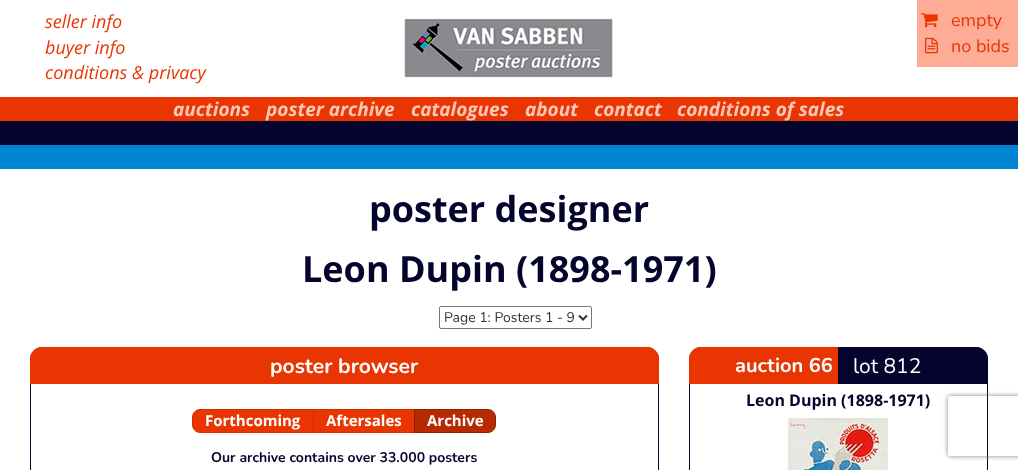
<svg xmlns="http://www.w3.org/2000/svg" width="1018" height="470" viewBox="0 0 1018 470">
  <style>
    .t1 { font: italic 18px Open Sans; fill: #e93502; }
    .t2 { font: italic bold 19px Open Sans; fill: #fec8b9; }
    .t3 { font: bold 36px Open Sans; fill: #05042c; }
    .t4 { font: 14px Nunito; fill: #333; }
    .t5 { font: bold 21px Nunito; fill: #fff; }
    .t6 { font: bold 15px Open Sans; fill: #fff; }
    .t7 { font: bold 14px Nunito; fill: #05042c; }
    .t8 { font: bold 20px Nunito; fill: #fff; }
    .t9 { font: 21px Nunito; fill: #fff; }
    .t10 { font: bold 16px Open Sans; fill: #05042c; }
    .t11 { font: 18px Nunito; fill: #e93502; }
  </style>
  <defs>
    <clipPath id="clip1"><path d="M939 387H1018V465H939ZM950 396H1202C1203 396 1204 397 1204 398V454C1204 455 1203 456 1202 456H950C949 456 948 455 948 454V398C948 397 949 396 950 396Z" clip-rule="evenodd"/></clipPath>
  </defs>
  <rect width="100%" height="100%" fill="#fff"/>
  <text x="45" y="28" class="t1">seller info</text>
  <text x="45" y="54" class="t1">buyer info</text>
  <text x="45" y="79" class="t1">conditions &amp; privacy</text>
  <image x="404" y="18" width="209" height="60" href="images/1.png"/>
  <rect x="0" y="97" width="1018" height="24" fill="#e93502"/>
  <text x="173" y="116" class="t2">auctions</text>
  <text x="266" y="116" class="t2">poster archive</text>
  <text x="411" y="116" class="t2">catalogues</text>
  <text x="525" y="116" class="t2">about</text>
  <text x="594" y="116" class="t2">contact</text>
  <text x="677" y="116" class="t2">conditions of sales</text>
  <rect x="0" y="121" width="1018" height="24" fill="#05042c"/>
  <rect x="0" y="145" width="1018" height="24" fill="#0085d2"/>
  <text x="369" y="222" class="t3">poster designer</text>
  <text x="302" y="282" class="t3">Leon Dupin (1898-1971)</text>
  <rect x="439.5" y="306.5" width="152" height="22" rx="1.5" fill="none" stroke="#767676"/>
  <path d="M579 315.5L583 319.5L587 315.5" fill="none" stroke="#333" stroke-width="2"/>
  <text x="444" y="322" class="t4">Page 1: Posters 1 - 9</text>
  <rect x="30.5" y="347.5" width="628" height="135" rx="11.5" fill="none" stroke="#05042c"/>
  <path d="M42 347H647C653.5 347 659 352.5 659 359V384H30V359C30 352.5 35.5 347 42 347Z" fill="#e93502"/>
  <text x="270" y="373" class="t5">poster browser</text>
  <path d="M200 409.5H313.5V432.5H200C196 432.5 192.5 429 192.5 425V417C192.5 413 196 409.5 200 409.5Z" fill="#e93502" stroke="#d02f02"/>
  <text x="205" y="426" class="t6">Forthcoming</text>
  <rect x="313.5" y="409.5" width="101" height="23" fill="#e93502" stroke="#d02f02"/>
  <text x="326" y="426" class="t6">Aftersales</text>
  <path d="M414.5 409.5H488C492 409.5 495.5 413 495.5 417V425C495.5 429 492 432.5 488 432.5H414.5Z" fill="#b62902" stroke="#932101"/>
  <text x="427" y="426" class="t6">Archive</text>
  <text x="211" y="462" class="t7">Our archive contains over 33.000 posters</text>
  <rect x="689.5" y="347.5" width="298" height="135" rx="11.5" fill="none" stroke="#05042c"/>
  <path d="M701 347H838V384H689V359C689 352.5 694.5 347 701 347Z" fill="#e93502"/>
  <text x="735" y="372" class="t8">auction 66</text>
  <path d="M838 347H976C982.5 347 988 352.5 988 359V384H838Z" fill="#05042c"/>
  <text x="853" y="373" class="t9">lot 812</text>
  <text x="746" y="406" class="t10">Leon Dupin (1898-1971)</text>
  <image x="788" y="418" width="100" height="52" href="images/2.png"/>
  <rect x="917" y="0" width="101" height="67" fill="#feac95"/>
  <image x="921" y="13" width="17" height="15" href="images/3.png"/>
  <text x="951" y="26" class="t11">empty</text>
  <image x="925" y="37" width="13" height="17" href="images/4.png"/>
  <text x="951" y="52" class="t11">no bids</text>
  <g clip-path="url(#clip1)">
    <rect x="948" y="396" width="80" height="60" rx="2" fill="#808080" filter="blur(2.5px)"/>
  </g>
</svg>
